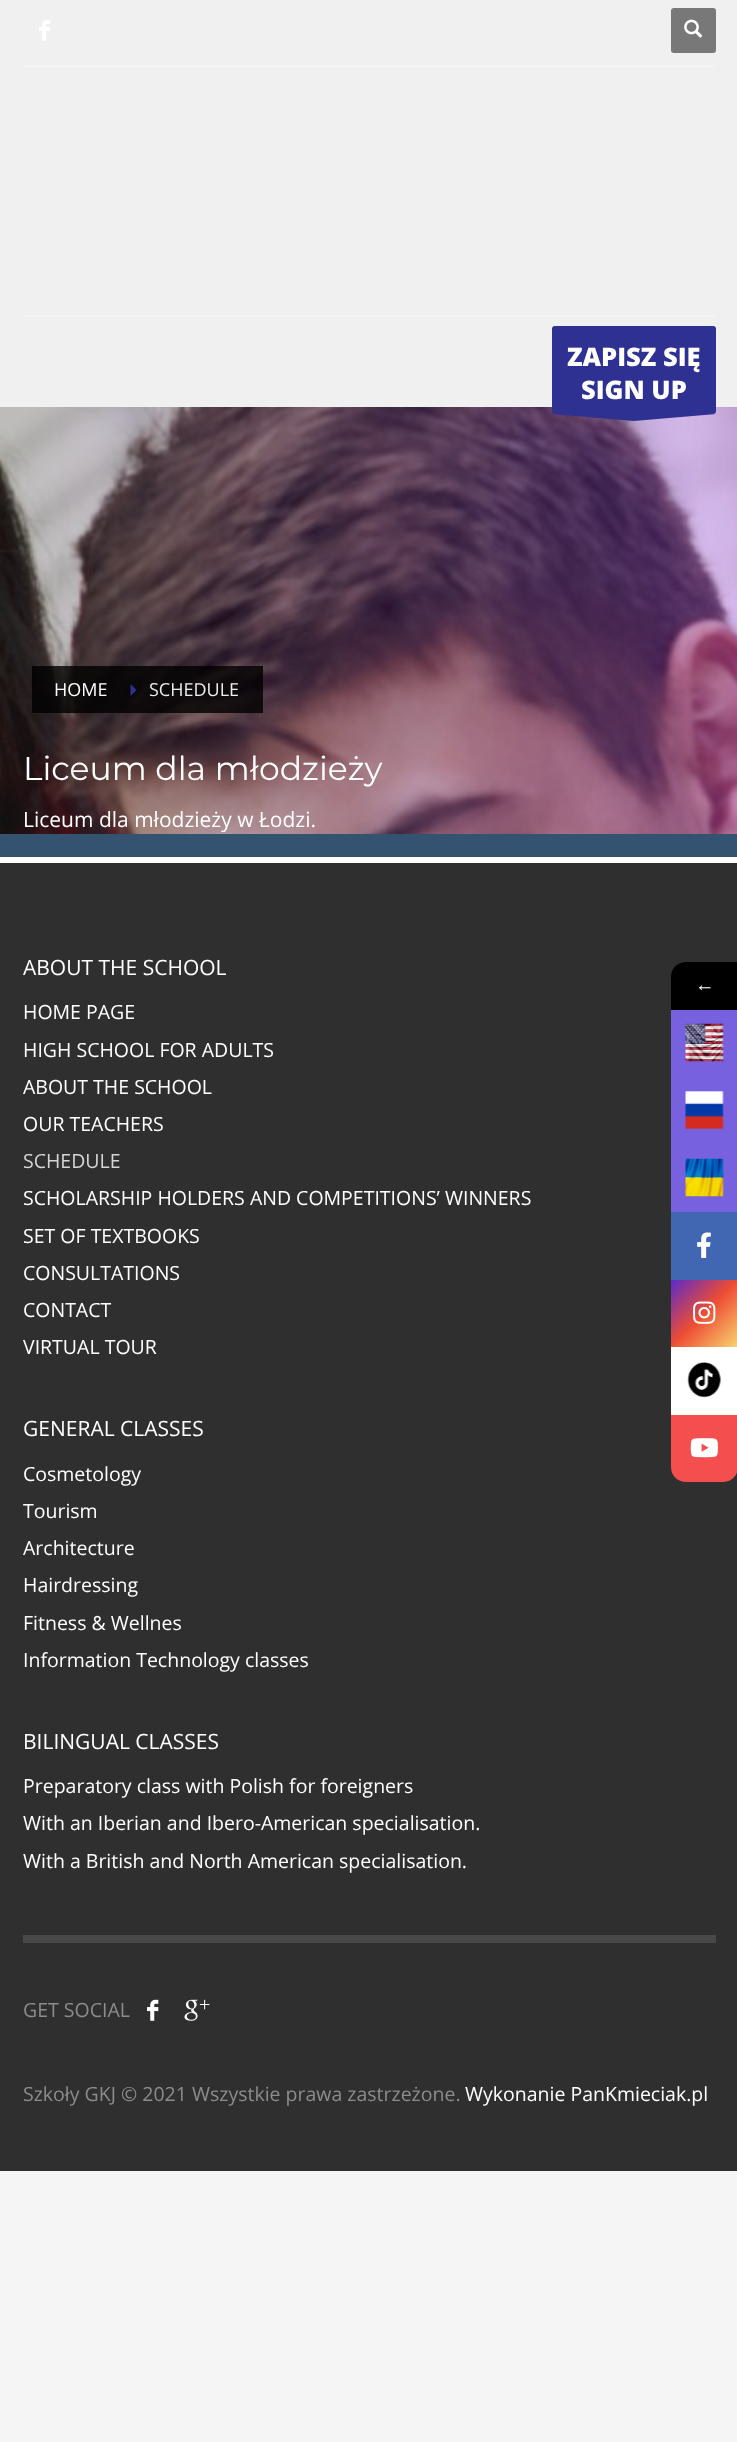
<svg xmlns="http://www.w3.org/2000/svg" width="737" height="2442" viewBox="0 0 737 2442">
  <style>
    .t1 { font: 800 25.5px Open Sans; fill: #fff; }
    .t2 { font: 18px Open Sans; fill: #fff; }
    .t3 { font: 18px Open Sans; fill: #eee; }
    .t4 { font: 33px Montserrat; fill: #fff; }
    .t5 { font: 21px Open Sans; fill: #fff; }
    .t6 { font: 19.5px Open Sans; fill: #fff; }
    .t7 { font: 19.5px Open Sans; fill: #d5d5d5; }
    .t8 { font: 19.5px Open Sans; fill: #8b8c8d; }
    .t9 { font: 19.5px Liberation Serif; fill: #fff; }
  </style>
  <defs>
    <linearGradient id="g1" gradientUnits="userSpaceOnUse" x1="671" y1="1279" x2="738" y2="1346"><stop offset="0" stop-color="#582bcd"/><stop offset="0.5" stop-color="#ed4c33"/><stop offset="1" stop-color="#f7d36f"/></linearGradient>
  </defs>
  <rect width="100%" height="100%" fill="#f5f5f5"/>
  <rect x="0" y="0" width="737" height="407" fill="#f0f0f0"/>
  <image x="39" y="20" width="12" height="21" href="images/1.png"/>
  <rect x="671" y="8" width="45" height="45" rx="3" fill="#787878"/>
  <image x="684" y="19" width="19" height="19" href="images/2.png"/>
  <rect x="23" y="65" width="693" height="2" fill="#f3f3f3"/>
  <rect x="23" y="315" width="693" height="2" fill="#f3f3f3"/>
  <image x="0" y="407" width="737" height="427" href="images/3.png"/>
  <rect x="552" y="326" width="164" height="88" rx="3" fill="#2e3192"/>
  <text x="567" y="366" class="t1">ZAPISZ SIĘ</text>
  <text x="581" y="399" class="t1">SIGN UP</text>
  <path d="M716 414L634 421L552 414Z" fill="#2e3192" fill-rule="evenodd"/>
  <rect x="0" y="834" width="737" height="23" fill="#345370"/>
  <rect x="32" y="666" width="84" height="47" fill="#000000cc"/>
  <text x="54" y="696" class="t2">HOME</text>
  <rect x="116" y="666" width="147" height="47" fill="#000000cc"/>
  <path d="M130.5 696V684L136.5 690Z" fill="#2e3192"/>
  <text x="149" y="696" class="t3">SCHEDULE</text>
  <text x="23" y="780" class="t4">Liceum dla młodzieży</text>
  <text x="23" y="827" class="t5">Liceum dla młodzieży w Łodzi.</text>
  <rect x="0" y="863" width="737" height="1308" fill="#2f2f2f"/>
  <rect x="0" y="857" width="737" height="6" fill="#fff"/>
  <text x="23" y="975" class="t5">ABOUT THE SCHOOL</text>
  <text x="23" y="1019" class="t6">HOME PAGE</text>
  <text x="23" y="1057" class="t6">HIGH SCHOOL FOR ADULTS</text>
  <text x="23" y="1094" class="t6">ABOUT THE SCHOOL</text>
  <text x="23" y="1131" class="t6">OUR TEACHERS</text>
  <text x="23" y="1168" class="t7">SCHEDULE</text>
  <text x="23" y="1205" class="t6">SCHOLARSHIP HOLDERS AND COMPETITIONS’ WINNERS</text>
  <text x="23" y="1243" class="t6">SET OF TEXTBOOKS</text>
  <text x="23" y="1280" class="t6">CONSULTATIONS</text>
  <text x="23" y="1317" class="t6">CONTACT</text>
  <text x="23" y="1354" class="t6">VIRTUAL TOUR</text>
  <text x="23" y="1436" class="t5">GENERAL CLASSES</text>
  <text x="23" y="1481" class="t6">Cosmetology</text>
  <text x="23" y="1518" class="t6">Tourism</text>
  <text x="23" y="1555" class="t6">Architecture</text>
  <text x="23" y="1592" class="t6">Hairdressing</text>
  <text x="23" y="1630" class="t6">Fitness &amp; Wellnes</text>
  <text x="23" y="1667" class="t6">Information Technology classes</text>
  <text x="23" y="1749" class="t5">BILINGUAL CLASSES</text>
  <text x="23" y="1793" class="t6">Preparatory class with Polish for foreigners</text>
  <text x="23" y="1830" class="t6">With an Iberian and Ibero-American specialisation.</text>
  <text x="23" y="1868" class="t6">With a British and North American specialisation.</text>
  <rect x="23" y="1935" width="693" height="8" fill="#484848"/>
  <text x="23" y="2017" class="t8">GET SOCIAL</text>
  <image x="147" y="1999" width="12" height="22" href="images/4.png"/>
  <image x="184" y="1999" width="26" height="22" href="images/5.png"/>
  <text x="23" y="2101" class="t8">Szkoły GKJ © 2021 Wszystkie prawa zastrzeżone.</text>
  <text x="465" y="2101" class="t6">Wykonanie PanKmieciak.pl</text>
  <path d="M686 962H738V1010H671V977C671 968.5 677.5 962 686 962Z" fill="#000"/>
  <text x="695" y="991" class="t9">←</text>
  <rect x="671" y="1010" width="66" height="202" fill="#7761df"/>
  <image x="685" y="1023" width="39" height="39" href="images/6.png"/>
  <image x="685" y="1091" width="39" height="38" href="images/7.png"/>
  <image x="685" y="1158" width="39" height="39" href="images/8.png"/>
  <rect x="671" y="1212" width="66" height="68" fill="#4267b2"/>
  <image x="697" y="1232" width="14" height="26" href="images/9.png"/>
  <rect x="671" y="1280" width="66" height="67" fill="url(#g1)"/>
  <image x="693" y="1301" width="23" height="23" href="images/10.png"/>
  <rect x="671" y="1347" width="66" height="68" fill="#fff"/>
  <image x="687" y="1362" width="34" height="36" href="images/11.png"/>
  <path d="M671 1415H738V1467C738 1475.5 731.5 1482 723 1482H686C677.5 1482 671 1475.5 671 1467Z" fill="#f54e4e"/>
  <image x="690" y="1438" width="28" height="20" href="images/12.png"/>
</svg>
